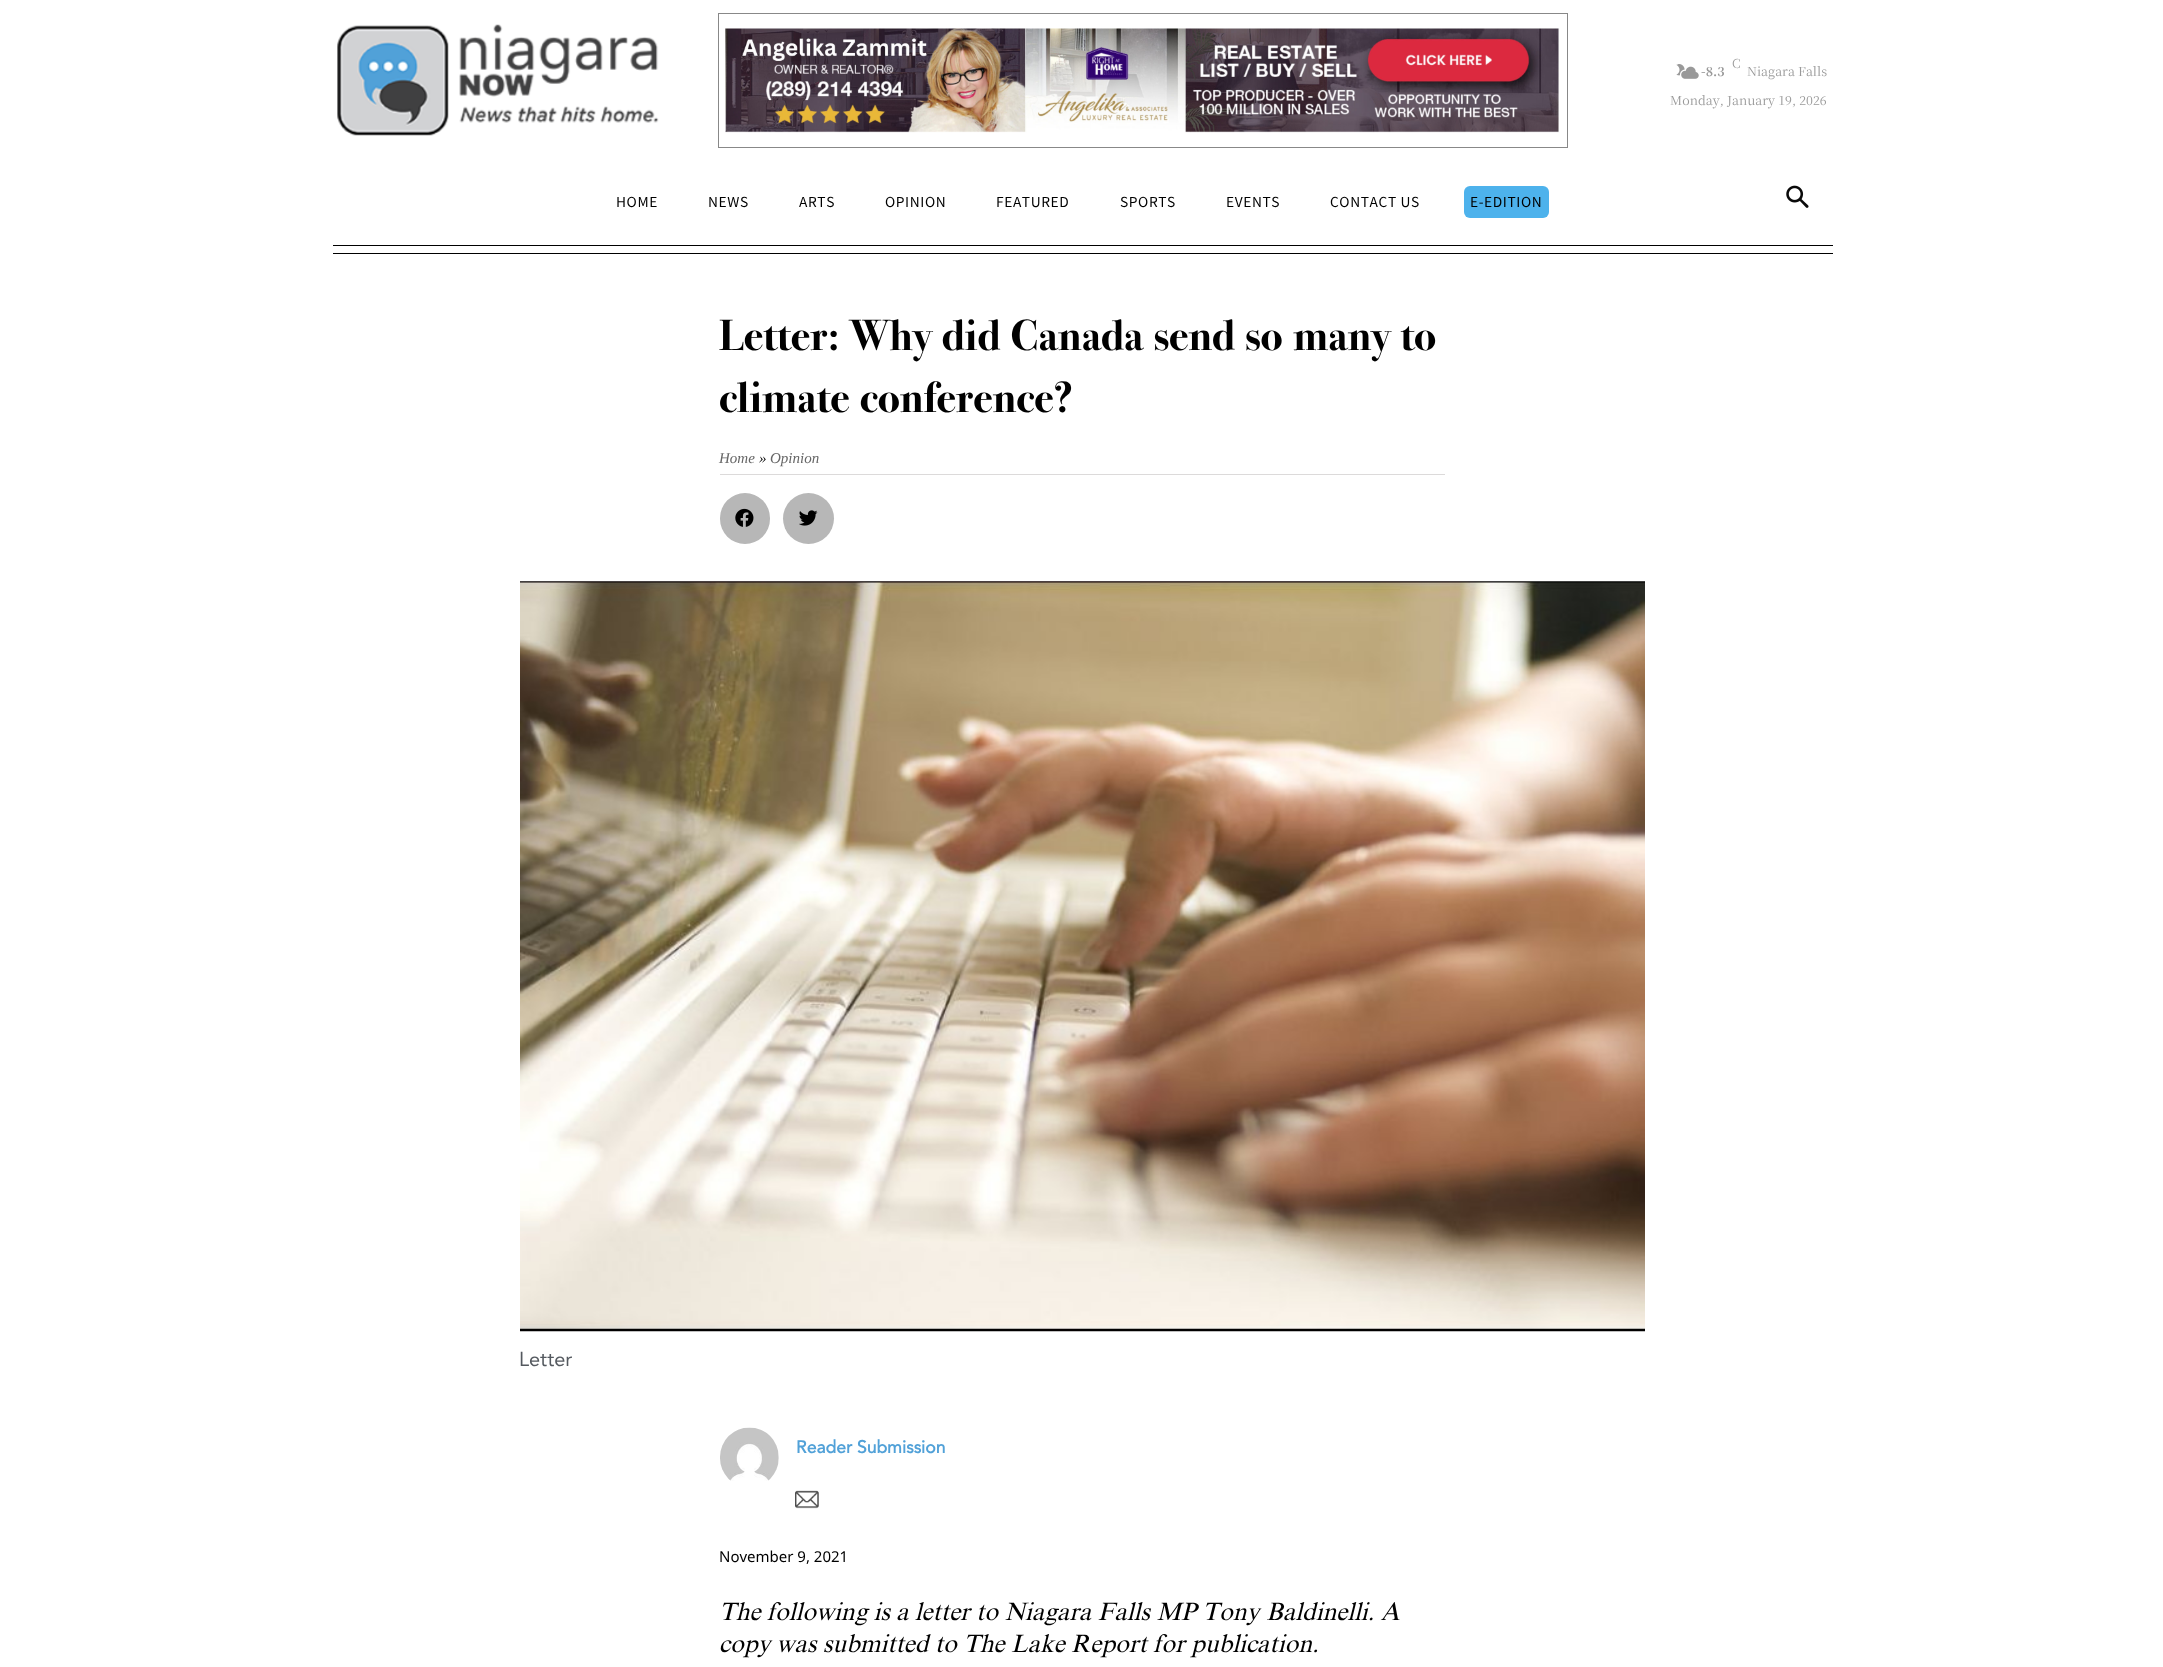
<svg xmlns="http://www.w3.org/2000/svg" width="2163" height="1667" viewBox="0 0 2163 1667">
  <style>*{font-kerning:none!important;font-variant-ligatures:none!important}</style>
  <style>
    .t1 { font: 300 12.5px Noto Serif JP; fill: #999; }
    .t2 { font: bold 12.5px Noto Serif JP; fill: #999; }
    .t3 { font: 12.5px Noto Serif JP; fill: #999; }
    .t4 { font: 13.75px Noto Sans JP; letter-spacing: 0.6px; fill: #000; }
    .t5 { font: bold 43.75px 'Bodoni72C'; fill: #000; }
    .t6 { font: italic 15px Liberation Serif; fill: #666; }
    .t7 { font: italic 15px Liberation Serif; fill: #000; }
    .t8 { font: 20px Avenir; fill: #54595f; }
    .t9 { font: bold 17.5px Avenir; fill: #51a1d8; }
    .t10 { font: 15px Noto Sans; fill: #000; }
    .t11 { font: italic 25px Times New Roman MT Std; fill: #000; }
  </style>
  <rect width="100%" height="100%" fill="#fff"/>
  <image x="337" y="24" width="322" height="112" href="images/1.png"/>
  <rect x="718.5" y="13.5" width="849" height="134" fill="none" stroke="#888"/>
  <image x="725" y="28" width="835" height="105" href="images/2.png"/>
  <image x="1676" y="64" width="23" height="15" href="images/3.png"/>
  <text x="1732" y="68" class="t1">C</text>
  <text x="1701" y="76" class="t2">-8.3</text>
  <text x="1747" y="76" class="t3">Niagara Falls</text>
  <text x="1670" y="105" class="t3">Monday, January 19, 2026</text>
  <text x="616" y="207" class="t4">HOME</text>
  <text x="708" y="207" class="t4">NEWS</text>
  <text x="799" y="207" class="t4">ARTS</text>
  <text x="885" y="207" class="t4">OPINION</text>
  <text x="996" y="207" class="t4">FEATURED</text>
  <text x="1120" y="207" class="t4">SPORTS</text>
  <text x="1226" y="207" class="t4">EVENTS</text>
  <text x="1330" y="207" class="t4">CONTACT US</text>
  <rect x="1464" y="186" width="85" height="32" rx="6" fill="#4db2ec"/>
  <text x="1470" y="207" class="t4">E-EDITION</text>
  <image x="1786" y="185" width="23" height="23" href="images/4.png"/>
  <rect x="333" y="245" width="1500" height="1" fill="#000"/>
  <rect x="333" y="253" width="1500" height="1" fill="#000"/>
  <text x="719" y="350" class="t5">Letter: Why did Canada send so many to</text>
  <text x="719" y="412" class="t5">climate conference?</text>
  <text x="719" y="463" class="t6">Home</text>
  <text x="759" y="463" class="t7">»</text>
  <text x="770" y="463" class="t6">Opinion</text>
  <rect x="720" y="474" width="725" height="1" fill="#dcdada"/>
  <rect x="720" y="493" width="50" height="51" rx="25" fill="#b7b7b7"/>
  <image x="735" y="508" width="19" height="19" href="images/5.png"/>
  <circle cx="808.5" cy="518.5" r="25.5" fill="#b7b7b7"/>
  <image x="799" y="510" width="19" height="16" href="images/6.png"/>
  <image x="520" y="581" width="1125" height="751" href="images/7.png"/>
  <text x="519" y="1366" class="t8">Letter</text>
  <image x="720" y="1427" width="59" height="54" href="images/8.png"/>
  <text x="796" y="1453" class="t9">Reader Submission</text>
  <image x="795" y="1490" width="24" height="19" href="images/9.png"/>
  <text x="719" y="1562" class="t10">November 9, 2021</text>
  <text x="719" y="1620" class="t11">The following is a letter to Niagara Falls MP Tony</text>
  <text x="1266" y="1620" class="t11">Baldinelli. A</text>
  <text x="719" y="1652" class="t11">copy was submitted to The Lake Report for publication.</text>
</svg>
